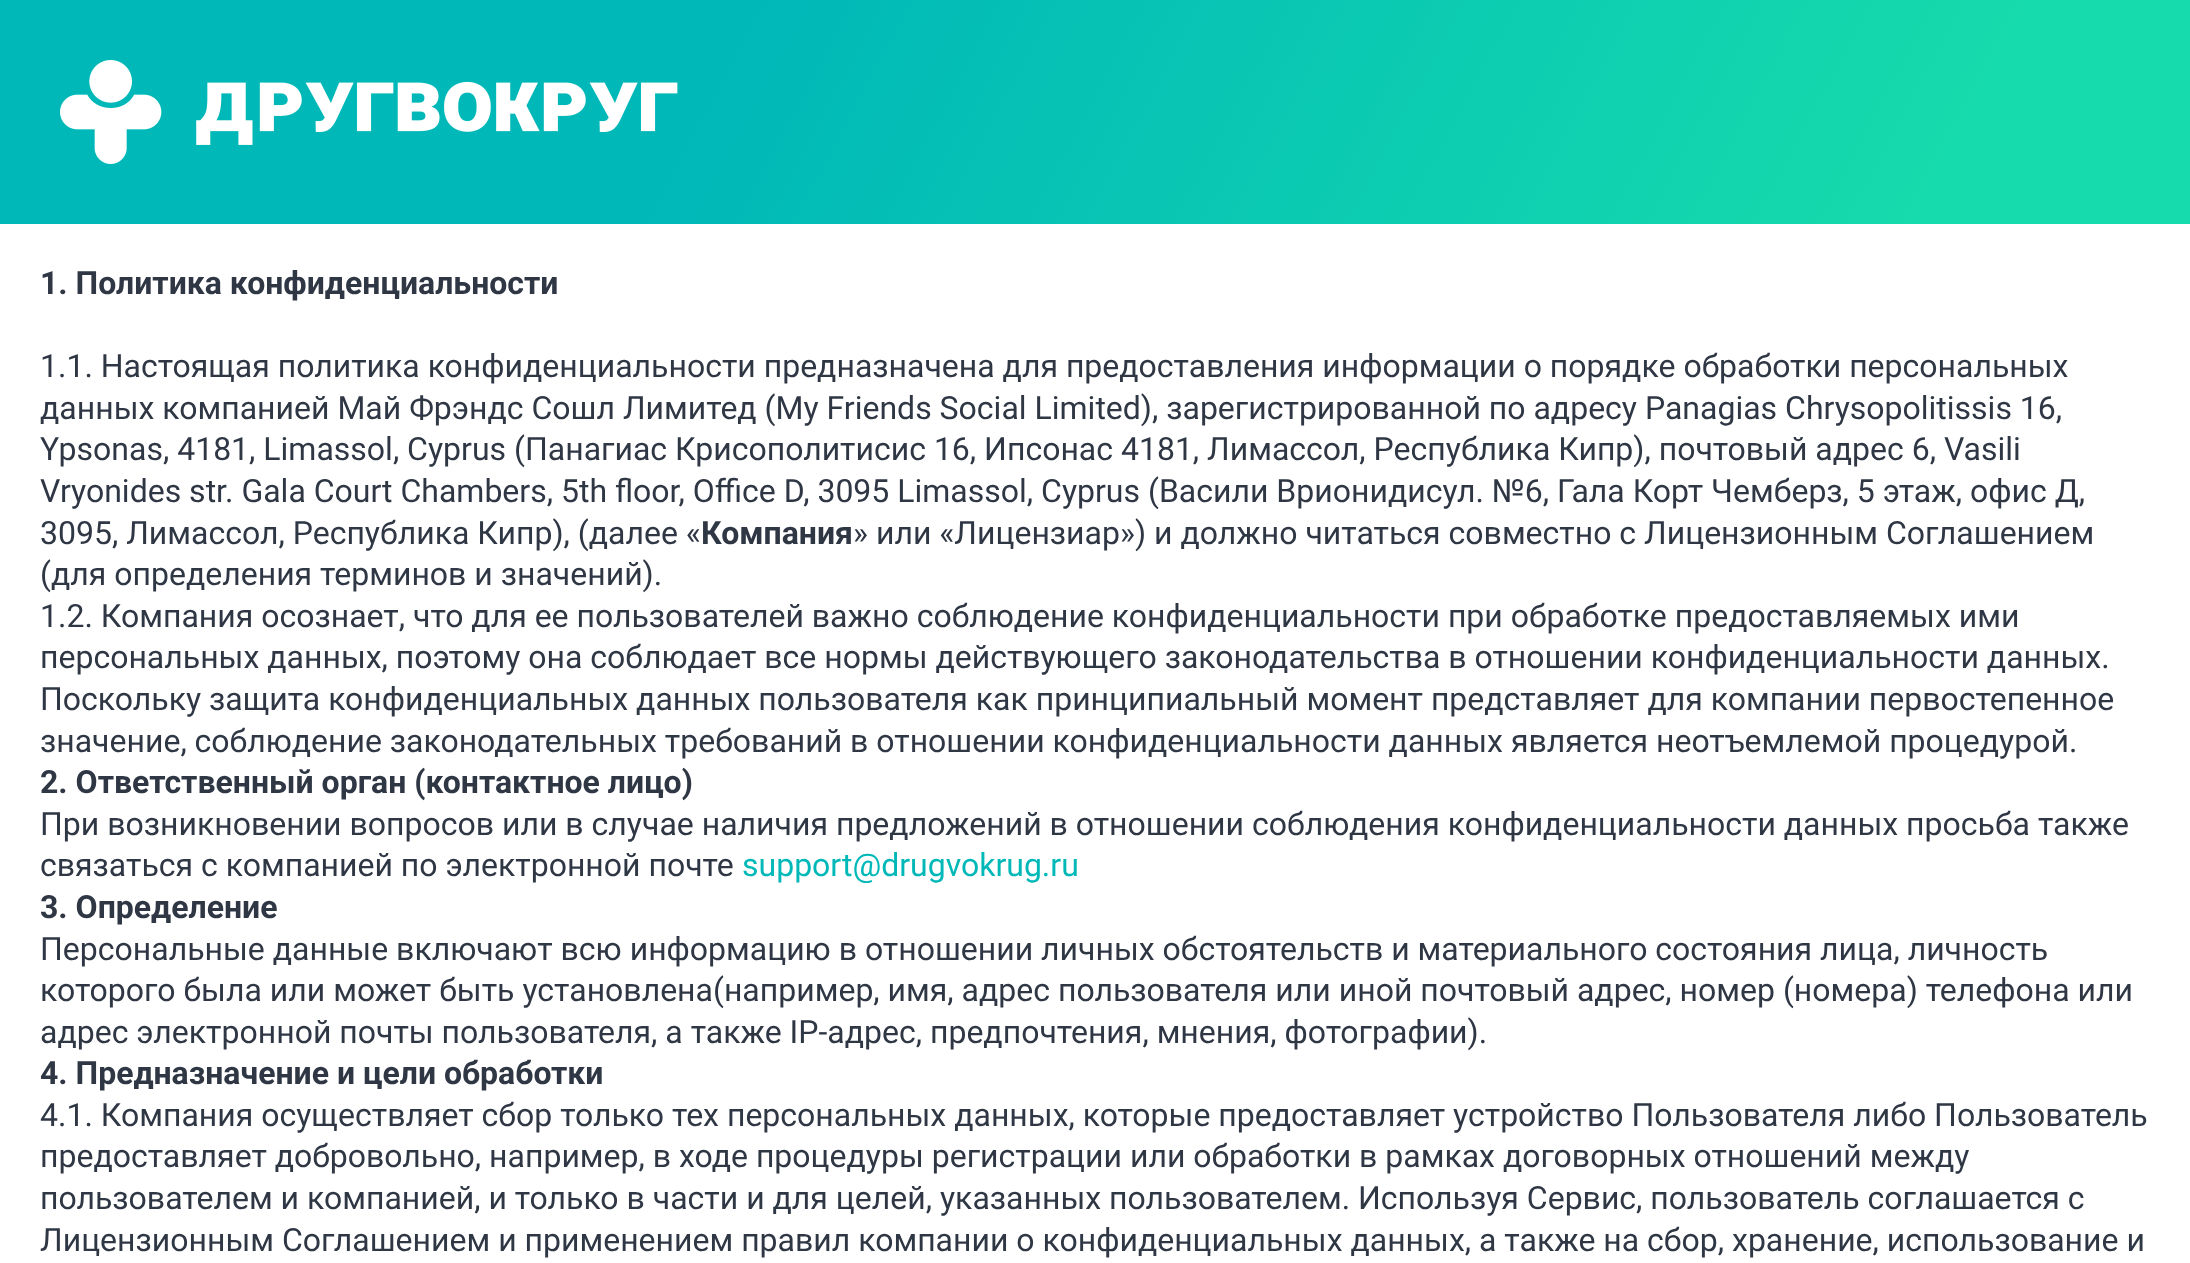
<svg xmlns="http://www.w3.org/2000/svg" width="2190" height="1263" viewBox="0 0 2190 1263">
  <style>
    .t1 { font: bold 32px Roboto; fill: #2f3745; }
    .t2 { font: 32px Roboto; fill: #2f3745; }
    .t3 { font: 32px Roboto; fill: #00b8b8; }
  </style>
  <defs>
    <linearGradient id="g1" gradientUnits="userSpaceOnUse" x1="195" y1="-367" x2="1995" y2="591"><stop offset="0.33" stop-color="#00b8b8"/><stop offset="0.88" stop-color="#16dbac"/></linearGradient>
  </defs>
  <rect width="100%" height="100%" fill="#fff"/>
  <rect x="0" y="0" width="2190" height="224" fill="url(#g1)"/>
  <image x="60" y="60" width="618" height="104" href="images/1.png"/>
  <text x="40" y="294" class="t1">1. Политика конфиденциальности</text>
  <text x="40" y="377" class="t2">1.1. Настоящая политика конфиденциальности предназначена для предоставления информации о порядке обработки персональных</text>
  <text x="40" y="419" class="t2">данных компанией Май Фрэндс Сошл Лимитед (My Friends Social Limited), зарегистрированной по адресу Panagias Chrysopolitissis 16,</text>
  <text x="40" y="460" class="t2">Ypsonas, 4181, Limassol, Cyprus (Панагиас Крисополитисис 16, Ипсонас 4181, Лимассол, Республика Кипр), почтовый адрес 6, Vasili</text>
  <text x="40" y="502" class="t2">Vryonides str. Gala Court Chambers, 5th floor, Office D, 3095 Limassol, Cyprus (Васили Врионидисул. №6, Гала Корт Чемберз, 5 этаж, офис Д,</text>
  <text x="40" y="544" class="t2">3095, Лимассол, Республика Кипр), (далее «</text>
  <text x="701" y="544" class="t1">Компания</text>
  <text x="853" y="544" class="t2">» или «Лицензиар») и должно читаться совместно с Лицензионным Соглашением</text>
  <text x="40" y="585" class="t2">(для определения терминов и значений).</text>
  <text x="40" y="627" class="t2">1.2. Компания осознает, что для ее пользователей важно соблюдение конфиденциальности при обработке предоставляемых ими</text>
  <text x="40" y="668" class="t2">персональных данных, поэтому она соблюдает все нормы действующего законодательства в отношении конфиденциальности данных.</text>
  <text x="40" y="710" class="t2">Поскольку защита конфиденциальных данных пользователя как принципиальный момент представляет для компании первостепенное</text>
  <text x="40" y="752" class="t2">значение, соблюдение законодательных требований в отношении конфиденциальности данных является неотъемлемой процедурой.</text>
  <text x="40" y="793" class="t1">2. Ответственный орган (контактное лицо)</text>
  <text x="40" y="835" class="t2">При возникновении вопросов или в случае наличия предложений в отношении соблюдения конфиденциальности данных просьба также</text>
  <text x="40" y="876" class="t2">связаться с компанией по электронной почте</text>
  <text x="742" y="876" class="t3">support@drugvokrug.ru</text>
  <text x="40" y="918" class="t1">3. Определение</text>
  <text x="40" y="960" class="t2">Персональные данные включают всю информацию в отношении личных обстоятельств и материального состояния лица, личность</text>
  <text x="40" y="1001" class="t2">которого была или может быть установлена(например, имя, адрес пользователя или иной почтовый адрес, номер (номера) телефона или</text>
  <text x="40" y="1043" class="t2">адрес электронной почты пользователя, а также IP-адрес, предпочтения, мнения, фотографии).</text>
  <text x="40" y="1084" class="t1">4. Предназначение и цели обработки</text>
  <text x="40" y="1126" class="t2">4.1. Компания осуществляет сбор только тех персональных данных, которые предоставляет устройство Пользователя либо Пользователь</text>
  <text x="40" y="1167" class="t2">предоставляет добровольно, например, в ходе процедуры регистрации или обработки в рамках договорных отношений между</text>
  <text x="40" y="1209" class="t2">пользователем и компанией, и только в части и для целей, указанных пользователем. Используя Сервис, пользователь соглашается с</text>
  <text x="40" y="1251" class="t2">Лицензионным Соглашением и применением правил компании о конфиденциальных данных, а также на сбор, хранение, использование и</text>
</svg>
